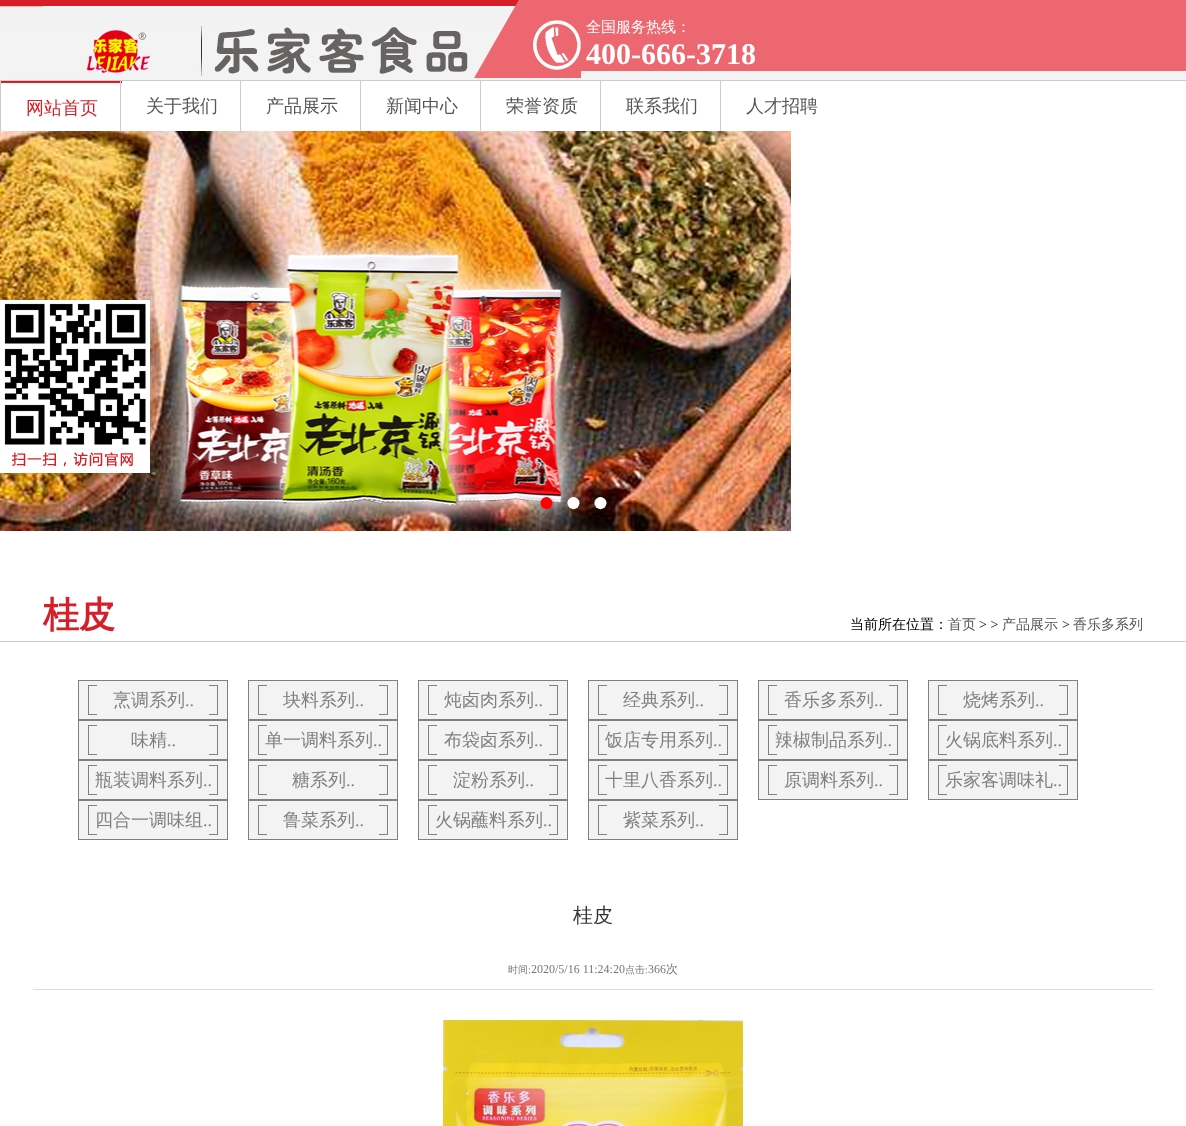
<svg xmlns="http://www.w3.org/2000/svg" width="1186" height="1126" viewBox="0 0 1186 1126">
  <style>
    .t1 { font: 500 15px WenQuanYi Zen Hei; fill: #fff; }
    .t2 { font: bold 30px Liberation Serif; fill: #fff; }
    .t3 { font: 500 18px WenQuanYi Zen Hei; fill: #d61f28; }
    .t4 { font: 500 18px WenQuanYi Zen Hei; fill: #555; }
    .t5 { font: 28px Liberation Sans; fill: #f00; }
    .t6 { font: 28px Liberation Sans; fill: #fff; }
    .t7 { font: bold 36px WenQuanYi Zen Hei; fill: #d61f28; }
    .t8 { font: 500 14px WenQuanYi Zen Hei; fill: #000; }
    .t9 { font: 500 14px WenQuanYi Zen Hei; fill: #555; }
    .t10 { font: 14px Liberation Serif; fill: #000; }
    .t11 { font: 500 18px WenQuanYi Zen Hei; fill: #808080; }
    .t12 { font: 18px Liberation Serif; fill: #808080; }
    .t13 { font: 500 20px WenQuanYi Zen Hei; fill: #333; }
    .t14 { font: 500 10px WenQuanYi Zen Hei; fill: #777; }
    .t15 { font: 10px Liberation Serif; fill: #777; }
    .t16 { font: 12px Liberation Serif; fill: #777; }
    .t17 { font: 500 12px WenQuanYi Zen Hei; fill: #777; }
  </style>
  <rect width="100%" height="100%" fill="#fff"/>
  <image x="0" y="0" width="1186" height="80" href="images/1.png"/>
  <rect x="43" y="6" width="1100" height="7" fill="#f3f3f3"/>
  <image x="83" y="26" width="385" height="50" href="images/2.png"/>
  <image x="474" y="0" width="107" height="78" href="images/3.png"/>
  <rect x="581" y="0" width="605" height="71" fill="#ec676f"/>
  <text x="586" y="32" class="t1">全国服务热线：</text>
  <text x="586" y="64" class="t2">400-666-3718</text>
  <rect x="0" y="80" width="1186" height="1" fill="#ccc"/>
  <rect x="0" y="81" width="1" height="50" fill="#ccc"/>
  <rect x="1" y="81" width="121" height="2" fill="#d61f28"/>
  <text x="26" y="114" class="t3">网站首页</text>
  <rect x="120" y="81" width="1" height="50" fill="#ccc"/>
  <text x="146" y="112" class="t4">关于我们</text>
  <rect x="240" y="81" width="1" height="50" fill="#ccc"/>
  <text x="266" y="112" class="t4">产品展示</text>
  <rect x="360" y="81" width="1" height="50" fill="#ccc"/>
  <text x="386" y="112" class="t4">新闻中心</text>
  <rect x="480" y="81" width="1" height="50" fill="#ccc"/>
  <text x="506" y="112" class="t4">荣誉资质</text>
  <rect x="600" y="81" width="1" height="50" fill="#ccc"/>
  <text x="626" y="112" class="t4">联系我们</text>
  <rect x="720" y="81" width="1" height="50" fill="#ccc"/>
  <text x="746" y="112" class="t4">人才招聘</text>
  <image x="0" y="131" width="791" height="400" href="images/5.png"/>
  <image x="0" y="300" width="150" height="173" href="images/4.png"/>
  <text x="538" y="511" class="t5">●</text>
  <text x="565" y="511" class="t6">●</text>
  <text x="592" y="511" class="t6">●</text>
  <rect x="0" y="641" width="1186" height="1" fill="#ccc"/>
  <text x="43" y="627" class="t7">桂皮</text>
  <text x="850" y="629" class="t8">当前所在位置：</text>
  <text x="948" y="629" class="t9">首页</text>
  <text x="979" y="629" class="t10">&gt; &gt;</text>
  <text x="1002" y="629" class="t9">产品展示</text>
  <text x="1062" y="629" class="t10">&gt;</text>
  <text x="1073" y="629" class="t9">香乐多系列</text>
  <image x="78" y="680" width="150" height="40" href="images/6.png"/>
  <text x="113" y="706" class="t11">烹调系列</text>
  <text x="185" y="706" class="t12">..</text>
  <image x="248" y="680" width="150" height="40" href="images/6.png"/>
  <text x="283" y="706" class="t11">块料系列</text>
  <text x="355" y="706" class="t12">..</text>
  <image x="418" y="680" width="150" height="40" href="images/6.png"/>
  <text x="444" y="706" class="t11">炖卤肉系列</text>
  <text x="534" y="706" class="t12">..</text>
  <image x="588" y="680" width="150" height="40" href="images/6.png"/>
  <text x="623" y="706" class="t11">经典系列</text>
  <text x="695" y="706" class="t12">..</text>
  <image x="758" y="680" width="150" height="40" href="images/6.png"/>
  <text x="784" y="706" class="t11">香乐多系列</text>
  <text x="874" y="706" class="t12">..</text>
  <image x="928" y="680" width="150" height="40" href="images/6.png"/>
  <text x="963" y="706" class="t11">烧烤系列</text>
  <text x="1035" y="706" class="t12">..</text>
  <image x="78" y="720" width="150" height="40" href="images/6.png"/>
  <text x="131" y="746" class="t11">味精</text>
  <text x="167" y="746" class="t12">..</text>
  <image x="248" y="720" width="150" height="40" href="images/6.png"/>
  <text x="265" y="746" class="t11">单一调料系列</text>
  <text x="373" y="746" class="t12">..</text>
  <image x="418" y="720" width="150" height="40" href="images/6.png"/>
  <text x="444" y="746" class="t11">布袋卤系列</text>
  <text x="534" y="746" class="t12">..</text>
  <image x="588" y="720" width="150" height="40" href="images/6.png"/>
  <text x="605" y="746" class="t11">饭店专用系列</text>
  <text x="713" y="746" class="t12">..</text>
  <image x="758" y="720" width="150" height="40" href="images/6.png"/>
  <text x="775" y="746" class="t11">辣椒制品系列</text>
  <text x="883" y="746" class="t12">..</text>
  <image x="928" y="720" width="150" height="40" href="images/6.png"/>
  <text x="945" y="746" class="t11">火锅底料系列</text>
  <text x="1053" y="746" class="t12">..</text>
  <image x="78" y="760" width="150" height="40" href="images/6.png"/>
  <text x="95" y="786" class="t11">瓶装调料系列</text>
  <text x="203" y="786" class="t12">..</text>
  <image x="248" y="760" width="150" height="40" href="images/6.png"/>
  <text x="292" y="786" class="t11">糖系列</text>
  <text x="346" y="786" class="t12">..</text>
  <image x="418" y="760" width="150" height="40" href="images/6.png"/>
  <text x="453" y="786" class="t11">淀粉系列</text>
  <text x="525" y="786" class="t12">..</text>
  <image x="588" y="760" width="150" height="40" href="images/6.png"/>
  <text x="605" y="786" class="t11">十里八香系列</text>
  <text x="713" y="786" class="t12">..</text>
  <image x="758" y="760" width="150" height="40" href="images/6.png"/>
  <text x="784" y="786" class="t11">原调料系列</text>
  <text x="874" y="786" class="t12">..</text>
  <image x="928" y="760" width="150" height="40" href="images/6.png"/>
  <text x="945" y="786" class="t11">乐家客调味礼</text>
  <text x="1053" y="786" class="t12">..</text>
  <image x="78" y="800" width="150" height="40" href="images/6.png"/>
  <text x="95" y="826" class="t11">四合一调味组</text>
  <text x="203" y="826" class="t12">..</text>
  <image x="248" y="800" width="150" height="40" href="images/6.png"/>
  <text x="283" y="826" class="t11">鲁菜系列</text>
  <text x="355" y="826" class="t12">..</text>
  <image x="418" y="800" width="150" height="40" href="images/6.png"/>
  <text x="435" y="826" class="t11">火锅蘸料系列</text>
  <text x="543" y="826" class="t12">..</text>
  <image x="588" y="800" width="150" height="40" href="images/6.png"/>
  <text x="623" y="826" class="t11">紫菜系列</text>
  <text x="695" y="826" class="t12">..</text>
  <text x="573" y="922" class="t13">桂皮</text>
  <rect x="33" y="989" width="1120" height="1" fill="#ddd"/>
  <text x="508" y="973" class="t14">时间</text>
  <text x="528" y="973" class="t15">:</text>
  <text x="531" y="973" class="t16">2020/5/16 11:24:20</text>
  <text x="625" y="973" class="t14">点击</text>
  <text x="645" y="973" class="t15">:</text>
  <text x="648" y="973" class="t16">366</text>
  <text x="666" y="973" class="t17">次</text>
  <image x="443" y="1020" width="300" height="106" href="images/7.png"/>
</svg>
